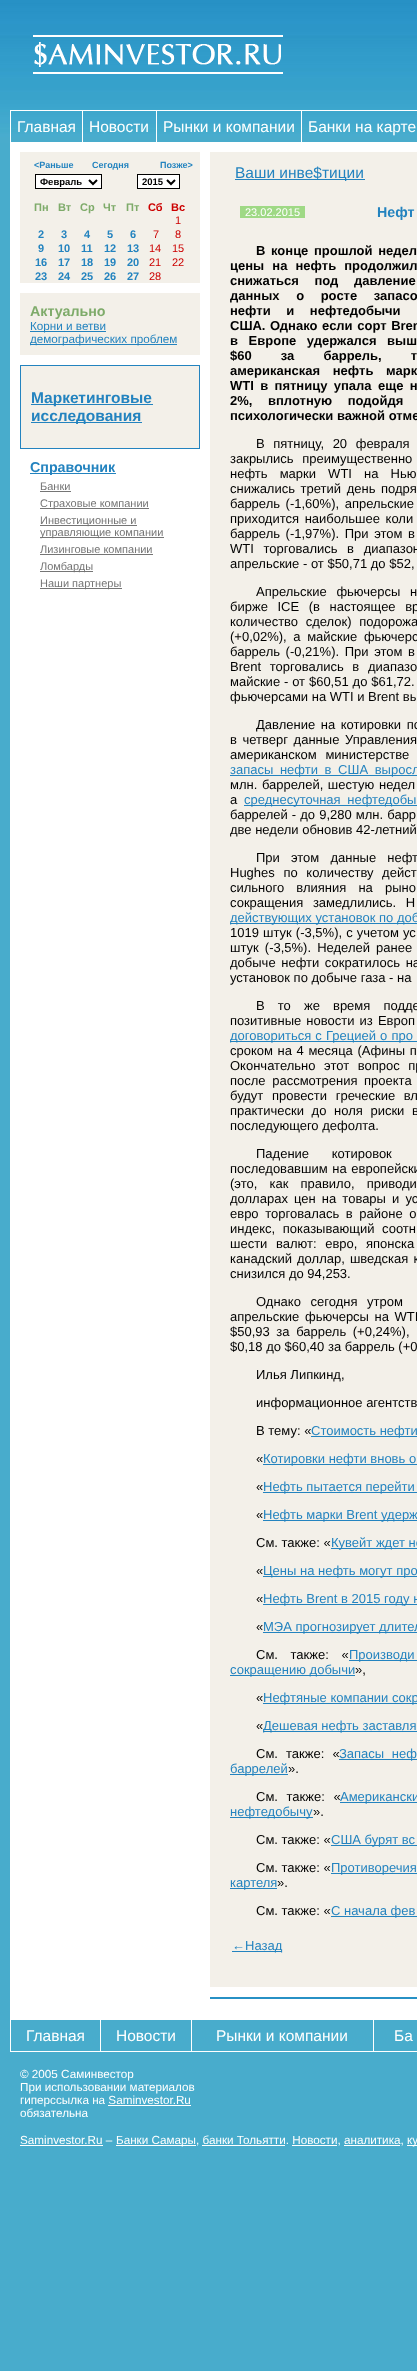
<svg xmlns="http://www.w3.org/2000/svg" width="417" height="2371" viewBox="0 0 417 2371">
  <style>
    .t1 { font: 15.5px Liberation Sans; fill: #fff; }
    .t2 { font: bold 9px Liberation Sans; fill: #2383bf; }
    .t3 { font: bold 9.5px Liberation Sans; fill: #000; }
    .t4 { font: bold 11px Liberation Sans; fill: #7eab6a; }
    .t5 { font: bold 11px Liberation Sans; fill: #c00; }
    .t6 { font: 11px Liberation Sans; fill: #c00; }
    .t7 { font: bold 11px Liberation Sans; fill: #2383bf; }
    .t8 { font: bold 14.25px Liberation Sans; fill: #7eab6a; }
    .t9 { font: 11.7px Liberation Sans; fill: #2383bf; }
    .t10 { font: bold 15.5px Liberation Sans; fill: #2383bf; }
    .t11 { font: bold 14.25px Liberation Sans; fill: #2383bf; }
    .t12 { font: 11px Liberation Sans; fill: #757575; }
    .t13 { font: 15.5px Liberation Sans; fill: #2383bf; }
    .t14 { font: 11px Liberation Sans; fill: #fff; }
    .t15 { font: bold 13px Liberation Sans; fill: #000; }
    .t16 { font: 13px Liberation Sans; fill: #000; }
    .t17 { font: 13px Liberation Sans; fill: #2383bf; }
    .t18 { font: 11.7px Liberation Sans; fill: #fff; }
  </style>
  <rect width="100%" height="100%" fill="#48accc"/>
  <image x="0" y="0" width="417" height="126" href="images/1.png"/>
  <image x="33" y="35" width="250" height="39" href="images/2.png"/>
  <image x="0" y="126" width="417" height="17" href="images/3.png"/>
  <rect x="10" y="110" width="407" height="1" fill="#fff"/>
  <rect x="10" y="142" width="407" height="1" fill="#fff"/>
  <rect x="10" y="111" width="1" height="31" fill="#fff"/>
  <text x="17" y="132" class="t1">Главная</text>
  <rect x="82" y="111" width="1" height="31" fill="#fff"/>
  <text x="89" y="132" class="t1">Новости</text>
  <rect x="156" y="111" width="1" height="31" fill="#fff"/>
  <text x="163" y="132" class="t1">Рынки и компании</text>
  <rect x="301" y="111" width="1" height="31" fill="#fff"/>
  <text x="308" y="132" class="t1">Банки на карте</text>
  <rect x="10" y="143" width="407" height="1876" fill="#fff"/>
  <rect x="20" y="152" width="180" height="131" fill="#f3f0e9"/>
  <text x="34" y="168" class="t2">&lt;Раньше</text>
  <text x="92" y="168" class="t2">Сегодня</text>
  <text x="160" y="168" class="t2">Позже&gt;</text>
  <rect x="35.5" y="174.5" width="66" height="14" fill="#fff" stroke="#000"/>
  <path d="M89 180L93 184L97 180" fill="none" stroke="#000" stroke-width="2"/>
  <text x="40" y="185" class="t3">Февраль</text>
  <rect x="137.5" y="174.5" width="42" height="14" fill="#fff" stroke="#000"/>
  <path d="M167 180L171 184L175 180" fill="none" stroke="#000" stroke-width="2"/>
  <text x="142" y="185" class="t3">2015</text>
  <text x="34" y="211" class="t4">Пн</text>
  <text x="58" y="211" class="t4">Вт</text>
  <text x="80" y="211" class="t4">Ср</text>
  <text x="103" y="211" class="t4">Чт</text>
  <text x="126" y="211" class="t4">Пт</text>
  <text x="148" y="211" class="t5">Сб</text>
  <text x="171" y="211" class="t5">Вс</text>
  <text x="175" y="224" class="t6">1</text>
  <text x="38" y="238" class="t7">2</text>
  <text x="61" y="238" class="t7">3</text>
  <text x="84" y="238" class="t7">4</text>
  <text x="107" y="238" class="t7">5</text>
  <text x="130" y="238" class="t7">6</text>
  <text x="153" y="238" class="t6">7</text>
  <text x="175" y="238" class="t6">8</text>
  <text x="38" y="252" class="t7">9</text>
  <text x="58" y="252" class="t7">10</text>
  <text x="81" y="252" class="t7">11</text>
  <text x="104" y="252" class="t7">12</text>
  <text x="127" y="252" class="t7">13</text>
  <text x="149" y="252" class="t6">14</text>
  <text x="172" y="252" class="t6">15</text>
  <text x="35" y="266" class="t7">16</text>
  <text x="58" y="266" class="t7">17</text>
  <text x="81" y="266" class="t7">18</text>
  <text x="104" y="266" class="t7">19</text>
  <text x="127" y="266" class="t7">20</text>
  <text x="149" y="266" class="t6">21</text>
  <text x="172" y="266" class="t6">22</text>
  <text x="35" y="280" class="t7">23</text>
  <text x="58" y="280" class="t7">24</text>
  <text x="81" y="280" class="t7">25</text>
  <text x="104" y="280" class="t7">26</text>
  <text x="127" y="280" class="t7">27</text>
  <text x="149" y="280" class="t6">28</text>
  <rect x="20" y="293" width="180" height="62" fill="#f3f0e9"/>
  <text x="30" y="316" class="t8">Актуально</text>
  <rect x="30" y="331" width="76" height="1" fill="#2383bf"/>
  <text x="30" y="330" class="t9">Корни и ветви</text>
  <rect x="30" y="344" width="147" height="1" fill="#2383bf"/>
  <text x="30" y="343" class="t9">демографических проблем</text>
  <rect x="20.5" y="365.5" width="179" height="83" fill="#f3f0e9" stroke="#2383bf"/>
  <rect x="31" y="404" width="122" height="1" fill="#2383bf"/>
  <text x="31" y="403" class="t10">Маркетинговые</text>
  <rect x="31" y="422" width="111" height="1" fill="#2383bf"/>
  <text x="31" y="421" class="t10">исследования</text>
  <rect x="30" y="473" width="86" height="1" fill="#2383bf"/>
  <text x="30" y="472" class="t11">Справочник</text>
  <text x="40" y="490" class="t12">Банки</text>
  <rect x="40" y="491" width="31" height="1" fill="#757575"/>
  <rect x="40" y="508" width="109" height="1" fill="#757575"/>
  <text x="40" y="507" class="t12">Страховые компании</text>
  <rect x="40" y="525" width="97" height="1" fill="#757575"/>
  <text x="40" y="524" class="t12">Инвестиционные и</text>
  <rect x="40" y="537" width="124" height="1" fill="#757575"/>
  <text x="40" y="536" class="t12">управляющие компании</text>
  <text x="40" y="553" class="t12">Лизинговые компании</text>
  <rect x="40" y="554" width="113" height="1" fill="#757575"/>
  <rect x="40" y="571" width="53" height="1" fill="#757575"/>
  <text x="40" y="570" class="t12">Ломбарды</text>
  <rect x="40" y="588" width="82" height="1" fill="#757575"/>
  <text x="40" y="587" class="t12">Наши партнеры</text>
  <rect x="210" y="152" width="207" height="1835" fill="#f3f0e9"/>
  <rect x="235" y="179" width="130" height="1" fill="#2383bf"/>
  <text x="235" y="178" class="t13">Ваши инве$тиции</text>
  <rect x="240" y="206" width="65" height="12" fill="#9fd985"/>
  <text x="245" y="216" class="t14">23.02.2015</text>
  <text x="377" y="217" class="t11">Нефт</text>
  <text x="256" y="255" word-spacing="2" class="t15">В конце прошлой недел</text>
  <text x="230" y="270" word-spacing="4.5" class="t15">цены на нефть продолжил</text>
  <text x="230" y="285" word-spacing="12" class="t15">снижаться под давление</text>
  <text x="230" y="300" word-spacing="13" class="t15">данных о росте запасо</text>
  <text x="230" y="315" word-spacing="12" class="t15">нефти и нефтедобычи</text>
  <text x="230" y="330" word-spacing="1" class="t15">США. Однако если сорт Bren</text>
  <text x="230" y="345" word-spacing="7" class="t15">в Европе удержался выш</text>
  <text x="230" y="360" word-spacing="25.5" class="t15">$60 за баррель, т</text>
  <text x="230" y="375" word-spacing="9" class="t15">американская нефть марк</text>
  <text x="230" y="390" word-spacing="2.75" class="t15">WTI в пятницу упала еще н</text>
  <text x="230" y="405" word-spacing="12" class="t15">2%, вплотную подойдя</text>
  <text x="230" y="420" class="t15">психологически важной отме</text>
  <text x="256" y="448" word-spacing="5" class="t16">В пятницу, 20 февраля</text>
  <text x="230" y="463" word-spacing="5" class="t16">закрылись преимущественно</text>
  <text x="230" y="478" word-spacing="8.5" class="t16">нефть марки WTI на Нью</text>
  <text x="230" y="493" word-spacing="2" class="t16">снижались третий день подря</text>
  <text x="230" y="508" word-spacing="2" class="t16">баррель (-1,60%), апрельские</text>
  <text x="230" y="523" word-spacing="2" class="t16">приходится наибольшее коли</text>
  <text x="230" y="538" word-spacing="2" class="t16">баррель (-1,97%). При этом в</text>
  <text x="230" y="553" word-spacing="6" class="t16">WTI торговались в диапазон</text>
  <text x="230" y="568" class="t16">апрельские - от $50,71 до $52,</text>
  <text x="256" y="596" word-spacing="6" class="t16">Апрельские фьючерсы н</text>
  <text x="230" y="611" word-spacing="6" class="t16">бирже ICE (в настоящее вр</text>
  <text x="230" y="626" word-spacing="4" class="t16">количество сделок) подорожа</text>
  <text x="230" y="641" word-spacing="3" class="t16">(+0,02%), а майские фьючерс</text>
  <text x="230" y="656" word-spacing="2" class="t16">баррель (-0,21%). При этом в</text>
  <text x="230" y="671" word-spacing="5" class="t16">Brent торговались в диапазо</text>
  <text x="230" y="686" word-spacing="0.25" class="t16">майские - от $60,51 до $61,72.</text>
  <text x="230" y="701" class="t16">фьючерсами на WTI и Brent вы</text>
  <text x="256" y="729" word-spacing="2" class="t16">Давление на котировки по</text>
  <text x="230" y="744" word-spacing="2" class="t16">в четверг данные Управления</text>
  <text x="230" y="759" word-spacing="5" class="t16">американском министерстве</text>
  <rect x="230" y="775" width="187" height="1" fill="#2383bf"/>
  <text x="230" y="774" word-spacing="3" class="t17">запасы нефти в США выросл</text>
  <text x="230" y="789" word-spacing="1" class="t16">млн. баррелей, шестую недел</text>
  <text x="230" y="804" class="t16">а</text>
  <rect x="244" y="805" width="173" height="1" fill="#2383bf"/>
  <text x="244" y="804" word-spacing="3" class="t17">среднесуточная нефтедобы</text>
  <text x="230" y="819" word-spacing="0.5" class="t16">баррелей - до 9,280 млн. барр</text>
  <text x="230" y="834" class="t16">две недели обновив 42-летний</text>
  <text x="256" y="862" word-spacing="7.5" class="t16">При этом данные нефт</text>
  <text x="230" y="877" word-spacing="5" class="t16">Hughes по количеству дейст</text>
  <text x="230" y="892" word-spacing="8.5" class="t16">сильного влияния на рыно</text>
  <text x="230" y="907" word-spacing="6" class="t16">сокращения замедлились. Н</text>
  <rect x="230" y="923" width="187" height="1" fill="#2383bf"/>
  <text x="230" y="922" class="t17">действующих установок по доб</text>
  <text x="230" y="937" word-spacing="0.5" class="t16">1019 штук (-3,5%), с учетом ус</text>
  <text x="230" y="952" word-spacing="2.5" class="t16">штук (-3,5%). Неделей ранее</text>
  <text x="230" y="967" word-spacing="2" class="t16">добыче нефти сократилось на</text>
  <text x="230" y="982" class="t16">установок по добыче газа - на</text>
  <text x="256" y="1010" word-spacing="9.5" class="t16">В то же время подде</text>
  <text x="230" y="1025" word-spacing="1.5" class="t16">позитивные новости из Европ</text>
  <rect x="230" y="1041" width="187" height="1" fill="#2383bf"/>
  <text x="230" y="1040" word-spacing="0.5" class="t17">договориться с Грецией о про</text>
  <text x="230" y="1055" word-spacing="1" class="t16">сроком на 4 месяца (Афины п</text>
  <text x="230" y="1070" word-spacing="5" class="t16">Окончательно этот вопрос пр</text>
  <text x="230" y="1085" word-spacing="3" class="t16">после рассмотрения проекта</text>
  <text x="230" y="1100" word-spacing="5" class="t16">будут провести греческие вл</text>
  <text x="230" y="1115" word-spacing="4" class="t16">практически до ноля риски в</text>
  <text x="230" y="1130" class="t16">последующего дефолта.</text>
  <text x="256" y="1158" word-spacing="19" class="t16">Падение котировок</text>
  <text x="230" y="1173" word-spacing="1" class="t16">последовавшим на европейски</text>
  <text x="230" y="1188" word-spacing="8.5" class="t16">(это, как правило, приводи</text>
  <text x="230" y="1203" word-spacing="2.5" class="t16">долларах цен на товары и ус</text>
  <text x="230" y="1218" word-spacing="3" class="t16">евро торговалась в районе о</text>
  <text x="230" y="1233" word-spacing="4" class="t16">индекс, показывающий соотн</text>
  <text x="230" y="1248" word-spacing="5" class="t16">шести валют: евро, японска</text>
  <text x="230" y="1263" word-spacing="1.5" class="t16">канадский доллар, шведская к</text>
  <text x="230" y="1278" class="t16">снизился до 94,253.</text>
  <text x="256" y="1306" word-spacing="6" class="t16">Однако сегодня утром</text>
  <text x="230" y="1321" word-spacing="2" class="t16">апрельские фьючерсы на WTI</text>
  <text x="230" y="1336" word-spacing="3" class="t16">$50,93 за баррель (+0,24%),</text>
  <text x="230" y="1351" class="t16">$0,18 до $60,40 за баррель (+0</text>
  <text x="256" y="1379" class="t16">Илья Липкинд,</text>
  <text x="256" y="1407" class="t16">информационное агентств</text>
  <text x="256" y="1435" class="t16">В тему: «</text>
  <rect x="311" y="1436" width="106" height="1" fill="#2383bf"/>
  <text x="311" y="1435" class="t17">Стоимость нефти</text>
  <text x="256" y="1463" class="t16">«</text>
  <rect x="263" y="1464" width="154" height="1" fill="#2383bf"/>
  <text x="263" y="1463" class="t17">Котировки нефти вновь о</text>
  <text x="256" y="1491" class="t16">«</text>
  <rect x="263" y="1492" width="154" height="1" fill="#2383bf"/>
  <text x="263" y="1491" class="t17">Нефть пытается перейти</text>
  <text x="256" y="1519" class="t16">«</text>
  <rect x="263" y="1520" width="154" height="1" fill="#2383bf"/>
  <text x="263" y="1519" class="t17">Нефть марки Brent удерж</text>
  <text x="256" y="1547" class="t16">См. также: «</text>
  <rect x="331" y="1548" width="86" height="1" fill="#2383bf"/>
  <text x="331" y="1547" class="t17">Кувейт ждет но</text>
  <text x="256" y="1575" class="t16">«</text>
  <rect x="263" y="1576" width="154" height="1" fill="#2383bf"/>
  <text x="263" y="1575" class="t17">Цены на нефть могут про</text>
  <text x="256" y="1603" class="t16">«</text>
  <rect x="263" y="1604" width="154" height="1" fill="#2383bf"/>
  <text x="263" y="1603" class="t17">Нефть Brent в 2015 году н</text>
  <text x="256" y="1631" class="t16">«</text>
  <rect x="263" y="1632" width="154" height="1" fill="#2383bf"/>
  <text x="263" y="1631" class="t17">МЭА прогнозирует длител</text>
  <text x="256" y="1659" word-spacing="9" class="t16">См. также: «</text>
  <rect x="349" y="1660" width="68" height="1" fill="#2383bf"/>
  <text x="349" y="1659" word-spacing="9" class="t17">Производи</text>
  <rect x="230" y="1675" width="125" height="1" fill="#2383bf"/>
  <text x="230" y="1674" class="t17">сокращению добычи</text>
  <text x="355" y="1674" class="t16">»,</text>
  <text x="256" y="1702" class="t16">«</text>
  <rect x="263" y="1703" width="154" height="1" fill="#2383bf"/>
  <text x="263" y="1702" class="t17">Нефтяные компании сокр</text>
  <text x="256" y="1730" class="t16">«</text>
  <rect x="263" y="1731" width="154" height="1" fill="#2383bf"/>
  <text x="263" y="1730" class="t17">Дешевая нефть заставля</text>
  <text x="256" y="1758" word-spacing="4.5" class="t16">См. также: «</text>
  <rect x="339" y="1759" width="78" height="1" fill="#2383bf"/>
  <text x="339" y="1758" word-spacing="4" class="t17">Запасы неф</text>
  <rect x="230" y="1774" width="58" height="1" fill="#2383bf"/>
  <text x="230" y="1773" class="t17">баррелей</text>
  <text x="288" y="1773" class="t16">».</text>
  <text x="256" y="1801" word-spacing="5" class="t16">См. также: «</text>
  <rect x="340" y="1802" width="77" height="1" fill="#2383bf"/>
  <text x="340" y="1801" word-spacing="5" class="t17">Американски</text>
  <rect x="230" y="1817" width="83" height="1" fill="#2383bf"/>
  <text x="230" y="1816" class="t17">нефтедобычу</text>
  <text x="313" y="1816" class="t16">».</text>
  <text x="256" y="1844" class="t16">См. также: «</text>
  <rect x="331" y="1845" width="86" height="1" fill="#2383bf"/>
  <text x="331" y="1844" class="t17">США бурят вс</text>
  <text x="256" y="1872" class="t16">См. также: «</text>
  <rect x="331" y="1873" width="86" height="1" fill="#2383bf"/>
  <text x="331" y="1872" class="t17">Противоречия</text>
  <rect x="230" y="1888" width="47" height="1" fill="#2383bf"/>
  <text x="230" y="1887" class="t17">картеля</text>
  <text x="277" y="1887" class="t16">».</text>
  <text x="256" y="1915" class="t16">См. также: «</text>
  <rect x="331" y="1916" width="86" height="1" fill="#2383bf"/>
  <text x="331" y="1915" class="t17">С начала фев</text>
  <rect x="232" y="1951" width="50" height="1" fill="#2383bf"/>
  <text x="232" y="1950" class="t17">←Назад</text>
  <rect x="210" y="1997" width="207" height="2" fill="#2791c5"/>
  <rect x="10" y="2019" width="407" height="1" fill="#fff"/>
  <rect x="10" y="2051" width="407" height="1" fill="#fff"/>
  <rect x="10" y="2020" width="1" height="31" fill="#fff"/>
  <text x="26" y="2041" class="t1">Главная</text>
  <rect x="100" y="2020" width="1" height="31" fill="#fff"/>
  <text x="116" y="2041" class="t1">Новости</text>
  <rect x="191" y="2020" width="1" height="31" fill="#fff"/>
  <text x="216" y="2041" class="t1">Рынки и компании</text>
  <rect x="373" y="2020" width="1" height="31" fill="#fff"/>
  <text x="394" y="2041" class="t1">Ба</text>
  <text x="20" y="2078" class="t18">© 2005 Саминвестор</text>
  <text x="20" y="2091" class="t18">При использовании материалов</text>
  <text x="20" y="2104" class="t18">гиперссылка на Saminvestor.Ru</text>
  <rect x="108" y="2105" width="83" height="1" fill="#fff"/>
  <text x="20" y="2117" class="t18">обязательна</text>
  <text x="20" y="2144" class="t18">Saminvestor.Ru –</text>
  <rect x="20" y="2145" width="83" height="1" fill="#fff"/>
  <rect x="116" y="2145" width="80" height="1" fill="#fff"/>
  <text x="116" y="2144" class="t18">Банки Самары, банки Тольятти. Новости, аналитика,</text>
  <rect x="407" y="2145" width="10" height="1" fill="#fff"/>
  <text x="407" y="2144" word-spacing="-1" class="t18">ку</text>
  <rect x="202" y="2145" width="83" height="1" fill="#fff"/>
  <rect x="292" y="2145" width="45" height="1" fill="#fff"/>
  <rect x="344" y="2145" width="56" height="1" fill="#fff"/>
</svg>
